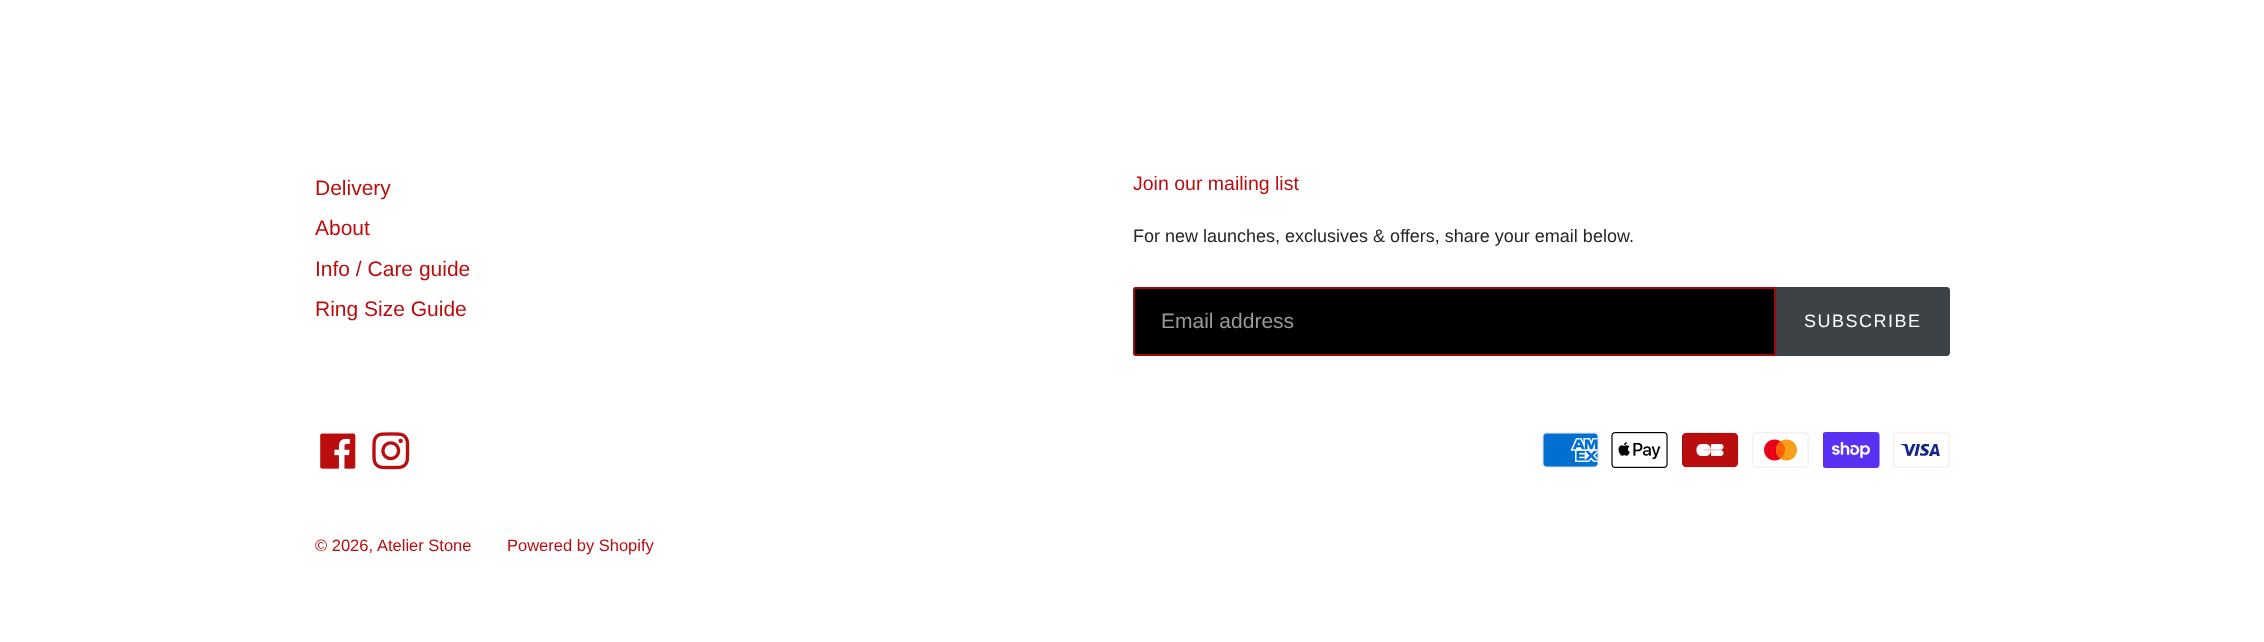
<svg xmlns="http://www.w3.org/2000/svg" width="2264" height="642" viewBox="0 0 2264 642">
  <style>
    .t1 { font: 21px Liberation Sans; fill: #ba0d0d; }
    .t2 { font: 19.5px Liberation Sans; fill: #ba0d0d; }
    .t3 { font: 18px Liberation Sans; fill: #242526; }
    .t4 { font: 21px Liberation Sans; fill: #999; }
    .t5 { font: 18px Liberation Sans; letter-spacing: 1.5px; fill: #fff; }
    .t6 { font: 16.5px Liberation Sans; fill: #ba0d0d; }
  </style>
  <rect width="100%" height="100%" fill="#fff"/>
  <text x="315" y="195" class="t1">Delivery</text>
  <text x="315" y="235" class="t1">About</text>
  <text x="315" y="276" class="t1">Info / Care guide</text>
  <text x="315" y="316" class="t1">Ring Size Guide</text>
  <text x="1133" y="190" class="t2">Join our mailing list</text>
  <text x="1133" y="242" class="t3">For new launches, exclusives &amp; offers, share your email below.</text>
  <path d="M1136 287H1776V356H1136C1134.5 356 1133 354.5 1133 353V290C1133 288.5 1134.5 287 1136 287Z" fill="#000"/>
  <path d="M1136 288H1775V355H1136C1135 355 1134 354 1134 353V290C1134 289 1135 288 1136 288Z" fill="none" stroke="#ba0d0dd9" stroke-width="2"/>
  <text x="1161" y="328" class="t4">Email address</text>
  <path d="M1776 287H1947C1948.5 287 1950 288.5 1950 290V353C1950 354.5 1948.5 356 1947 356H1776Z" fill="#3d4246"/>
  <text x="1804" y="327" class="t5">SUBSCRIBE</text>
  <image x="320" y="433" width="36" height="36" href="images/1.png"/>
  <image x="372" y="432" width="38" height="38" href="images/2.png"/>
  <image x="1542" y="432" width="57" height="36" href="images/3.png"/>
  <image x="1611" y="432" width="57" height="36" href="images/4.png"/>
  <image x="1682" y="432" width="57" height="36" href="images/5.png"/>
  <image x="1752" y="432" width="57" height="36" href="images/6.png"/>
  <image x="1823" y="432" width="57" height="36" href="images/7.png"/>
  <image x="1893" y="432" width="57" height="36" href="images/8.png"/>
  <text x="315" y="551" class="t6">© 2026,</text>
  <text x="377" y="551" class="t6">Atelier Stone</text>
  <text x="507" y="551" class="t6">Powered by Shopify</text>
</svg>
